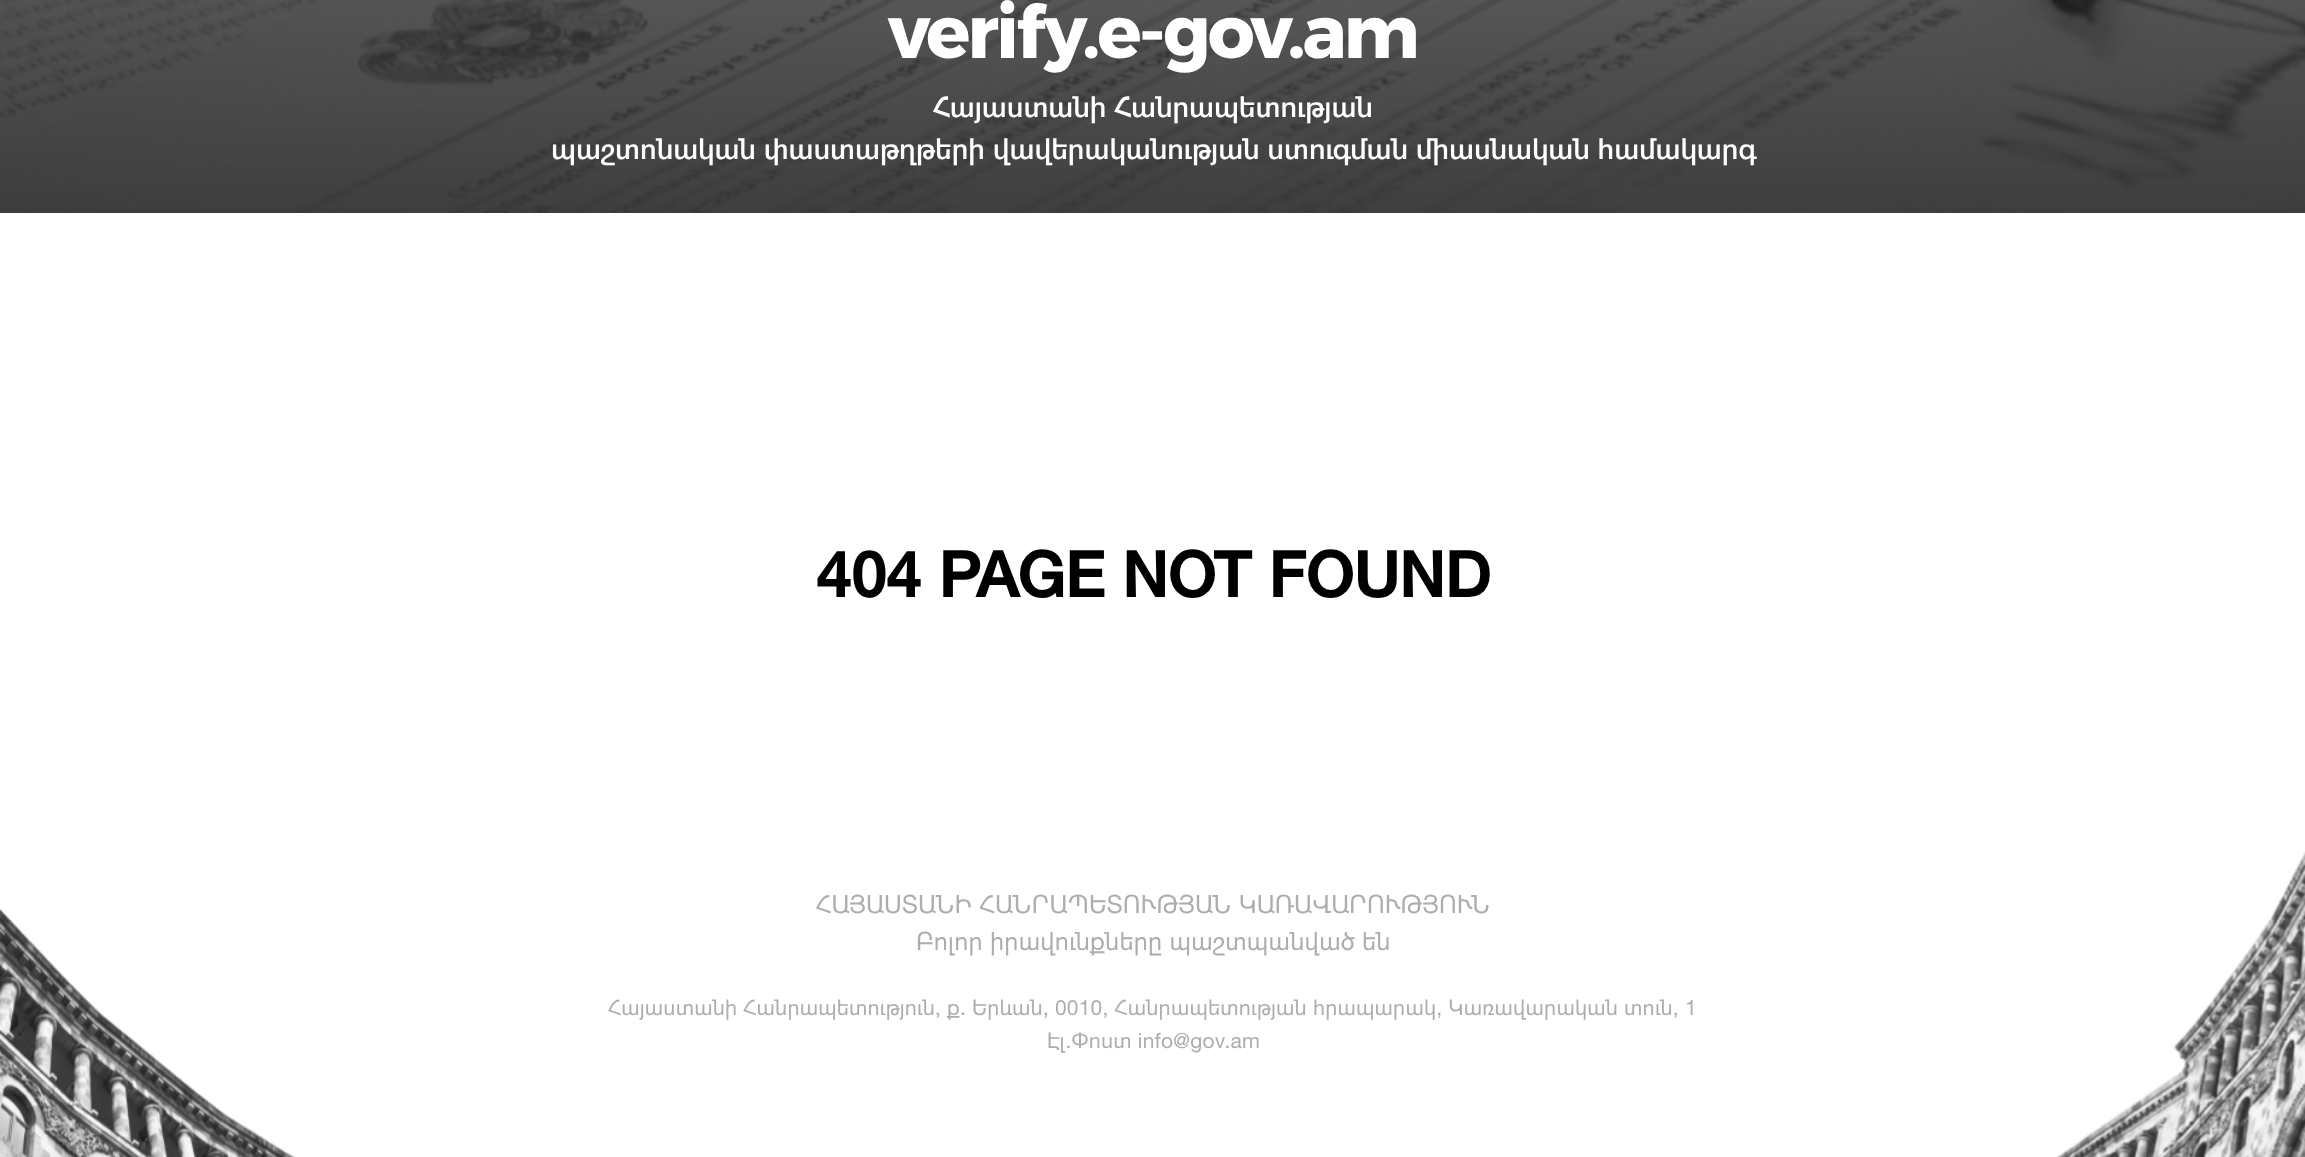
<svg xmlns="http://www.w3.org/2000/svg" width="2305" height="1157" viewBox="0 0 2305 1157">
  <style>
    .t1 { font: bold 73.5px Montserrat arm; letter-spacing: -3px; fill: #fff; }
    .t2 { font: 500 28px 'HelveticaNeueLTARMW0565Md'; fill: #fff; }
    .t3 { font: bold 63px 'HelveticaNeueLTARMW0565Md'; fill: #000; }
    .t4 { font: 24.5px 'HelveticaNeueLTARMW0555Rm'; letter-spacing: 0.25px; fill: #adadad; }
    .t5 { font: 21px 'HelveticaNeueLTARMW0555Rm'; letter-spacing: 0.2px; fill: #adadad; }
  </style>
  <rect width="100%" height="100%" fill="#fff"/>
  <image x="0" y="851" width="2305" height="306" href="images/1.png"/>
  <image x="0" y="0" width="2305" height="213" href="images/2.png"/>
  <text x="888" y="58" class="t1">verify.e-gov.am</text>
  <text x="933" y="117" class="t2">Հայաստանի Հանրապետության</text>
  <text x="551" y="159" class="t2">պաշտոնական փաստաթղթերի վավերականության ստուգման միասնական համակարգ</text>
  <text x="816" y="597" class="t3">404 PAGE NOT FOUND</text>
  <text x="816" y="913" class="t4">ՀԱՅԱՍՏԱՆԻ ՀԱՆՐԱՊԵՏՈՒԹՅԱՆ ԿԱՌԱՎԱՐՈՒԹՅՈՒՆ</text>
  <text x="916" y="950" class="t4">Բոլոր իրավունքները պաշտպանված են</text>
  <text x="608" y="1015" class="t5">Հայաստանի Հանրապետություն, ք. Երևան, 0010, Հանրապետության հրապարակ, Կառավարական տուն, 1</text>
  <text x="1047" y="1048" class="t5">Էլ.Փոստ info@gov.am</text>
</svg>
